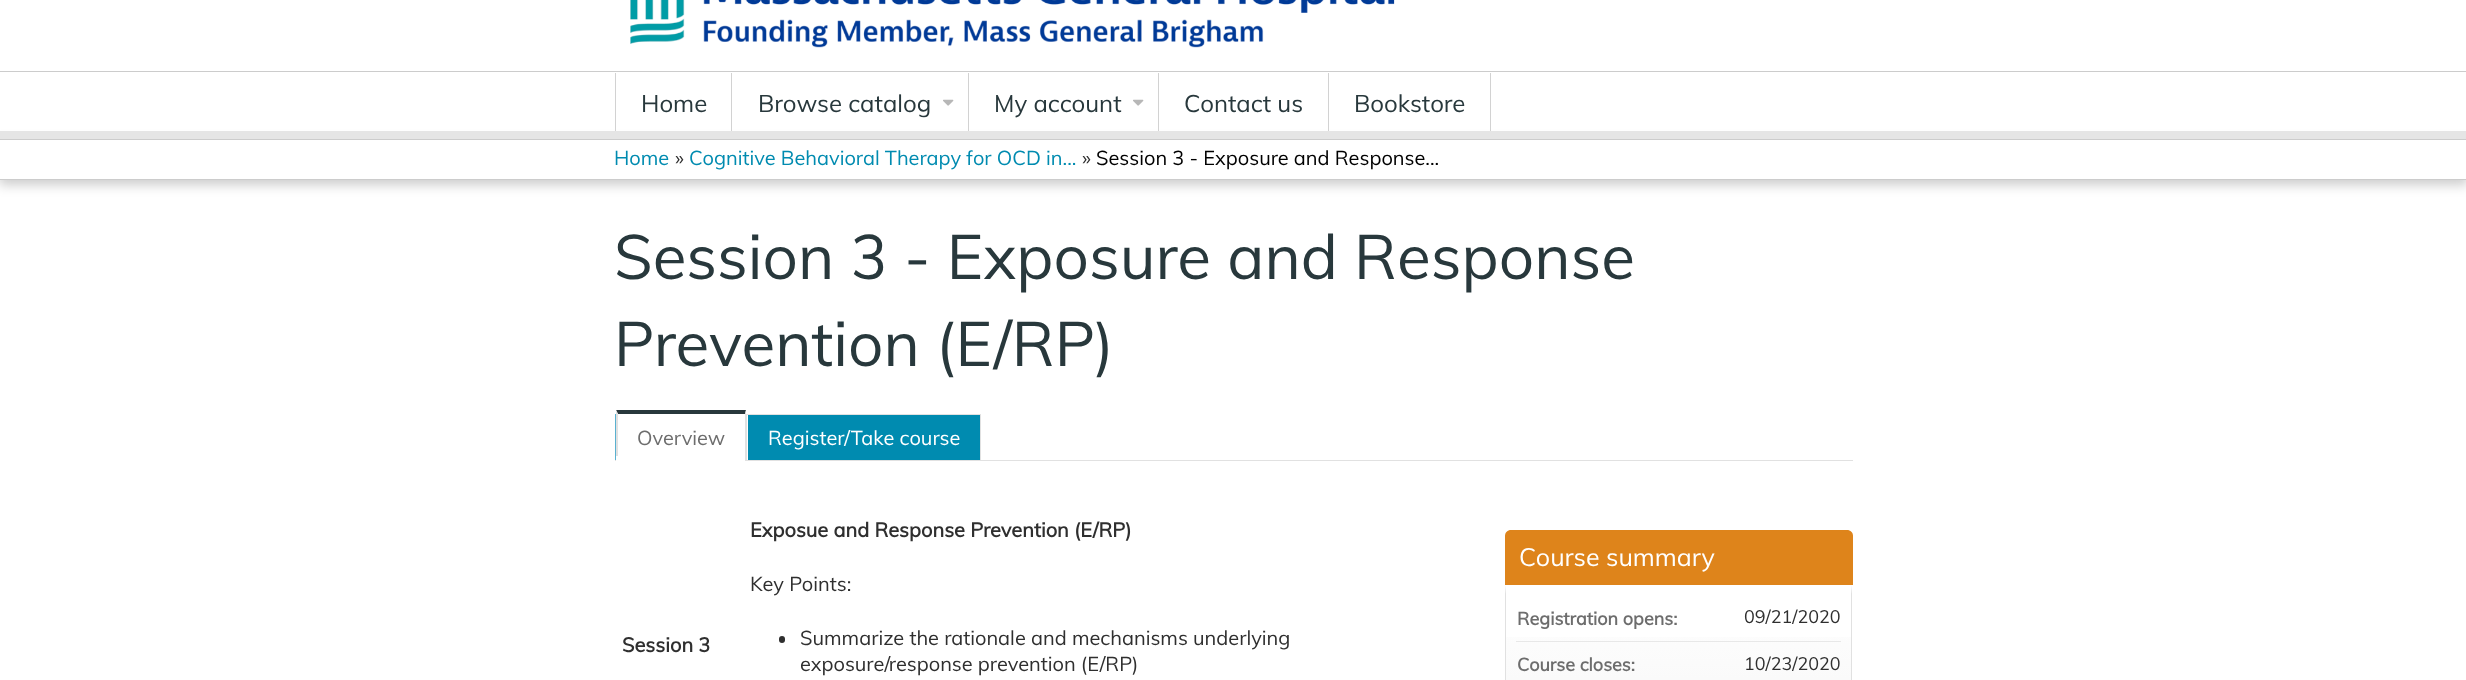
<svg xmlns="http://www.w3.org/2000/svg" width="2466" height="680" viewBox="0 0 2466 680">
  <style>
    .t1 { font: 24px Muli; fill: #28383c; }
    .t2 { font: 20px Muli; fill: #008bb0; }
    .t3 { font: 20px Muli; fill: #2f2f2f; }
    .t4 { font: 20px Muli; fill: #000; }
    .t5 { font: 62px Muli; fill: #28383c; }
    .t6 { font: 20px Muli; fill: #6d6d6d; }
    .t7 { font: 20px Muli; fill: #fff; }
    .t8 { font: bold 20px Muli; fill: #2f2f2f; }
    .t9 { font: 25px Muli; fill: #fff; }
    .t10 { font: bold 18px Muli; fill: #6d6d6d; }
    .t11 { font: 18px Muli; fill: #2f2f2f; }
  </style>
  <defs>
    <linearGradient id="g1" gradientUnits="userSpaceOnUse" x1="1679" y1="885" x2="1679" y2="594"><stop offset="0" stop-color="#eee"/><stop offset="1" stop-color="#fff"/></linearGradient>
  </defs>
  <rect width="100%" height="100%" fill="#fff"/>
  <image x="630" y="0" width="765" height="48" href="images/1.png"/>
  <rect x="0" y="71" width="2466" height="1" fill="#ccc"/>
  <rect x="-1" y="141" width="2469" height="44" fill="#00000033" filter="blur(6px)"/>
  <rect x="0" y="131" width="2466" height="8" fill="#e5e5e5"/>
  <rect x="731" y="73" width="1" height="58" fill="#d2d2d2"/>
  <rect x="615" y="73" width="1" height="58" fill="#d2d2d2"/>
  <text x="641" y="112" class="t1">Home</text>
  <rect x="968" y="73" width="1" height="58" fill="#d2d2d2"/>
  <text x="758" y="112" class="t1">Browse catalog</text>
  <image x="943" y="99" width="11" height="7" href="images/2.png"/>
  <rect x="1158" y="73" width="1" height="58" fill="#d2d2d2"/>
  <text x="994" y="112" class="t1">My account</text>
  <image x="1133" y="99" width="11" height="7" href="images/2.png"/>
  <rect x="1328" y="73" width="1" height="58" fill="#d2d2d2"/>
  <text x="1184" y="112" class="t1">Contact us</text>
  <rect x="1490" y="73" width="1" height="58" fill="#d2d2d2"/>
  <text x="1354" y="112" class="t1">Bookstore</text>
  <rect x="0" y="140" width="2466" height="39" fill="#fff"/>
  <rect x="0" y="139" width="2466" height="1" fill="#ccc"/>
  <rect x="0" y="179" width="2466" height="1" fill="#ccc"/>
  <text x="614" y="165" class="t2">Home</text>
  <text x="675" y="165" class="t3">»</text>
  <text x="689" y="165" class="t2">Cognitive Behavioral Therapy for OCD in...</text>
  <text x="1082" y="165" class="t3">»</text>
  <text x="1096" y="165" class="t4">Session 3 - Exposure and Response...</text>
  <text x="614" y="279" class="t5">Session 3 - Exposure and Response</text>
  <text x="614" y="366" class="t5">Prevention (E/RP)</text>
  <rect x="615" y="460" width="1238" height="1" fill="#e1e1e1"/>
  <rect x="615" y="414" width="1" height="46" fill="#5ab1d0"/>
  <path d="M616 410H746L745 414H618Z" fill="#28383c"/>
  <path d="M746 410V460H745V414Z" fill="#e1e1e1"/>
  <path d="M616 460V410L618 414V460Z" fill="#e1e1e1"/>
  <text x="637" y="445" class="t6">Overview</text>
  <rect x="616" y="456" width="129" height="5" fill="#fff"/>
  <rect x="748" y="415" width="232" height="45" fill="#008bb0"/>
  <rect x="746" y="414" width="235" height="1" fill="#e1e1e1"/>
  <rect x="980" y="414" width="1" height="46" fill="#e1e1e1"/>
  <rect x="746" y="414" width="1" height="46" fill="#e1e1e1"/>
  <text x="768" y="445" class="t7">Register/Take course</text>
  <text x="622" y="652" class="t8">Session 3</text>
  <text x="750" y="537" class="t8">Exposue and Response Prevention (E/RP)</text>
  <text x="750" y="591" class="t3">Key Points:</text>
  <rect x="779" y="636" width="6" height="7" rx="3" fill="#2f2f2f"/>
  <text x="800" y="645" class="t3">Summarize the rationale and mechanisms underlying</text>
  <text x="800" y="671" class="t3">exposure/response prevention (E/RP)</text>
  <path d="M1511 530H1847C1850.5 530 1853 532.5 1853 536V585H1505V536C1505 532.5 1507.5 530 1511 530Z" fill="#de841b"/>
  <text x="1519" y="566" class="t9">Course summary</text>
  <rect x="1506" y="637" width="345" height="43" fill="url(#g1)"/>
  <path d="M1852 585V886L1851 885V594Z" fill="#e1e1e1"/>
  <path d="M1505 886V585L1506 594V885Z" fill="#e1e1e1"/>
  <rect x="1516" y="641" width="325" height="1" fill="#e8e8e8"/>
  <text x="1517" y="625" class="t10">Registration opens:</text>
  <text x="1744" y="623" class="t11">09/21/2020</text>
  <text x="1517" y="671" class="t10">Course closes:</text>
  <text x="1744" y="670" class="t11">10/23/2020</text>
</svg>
